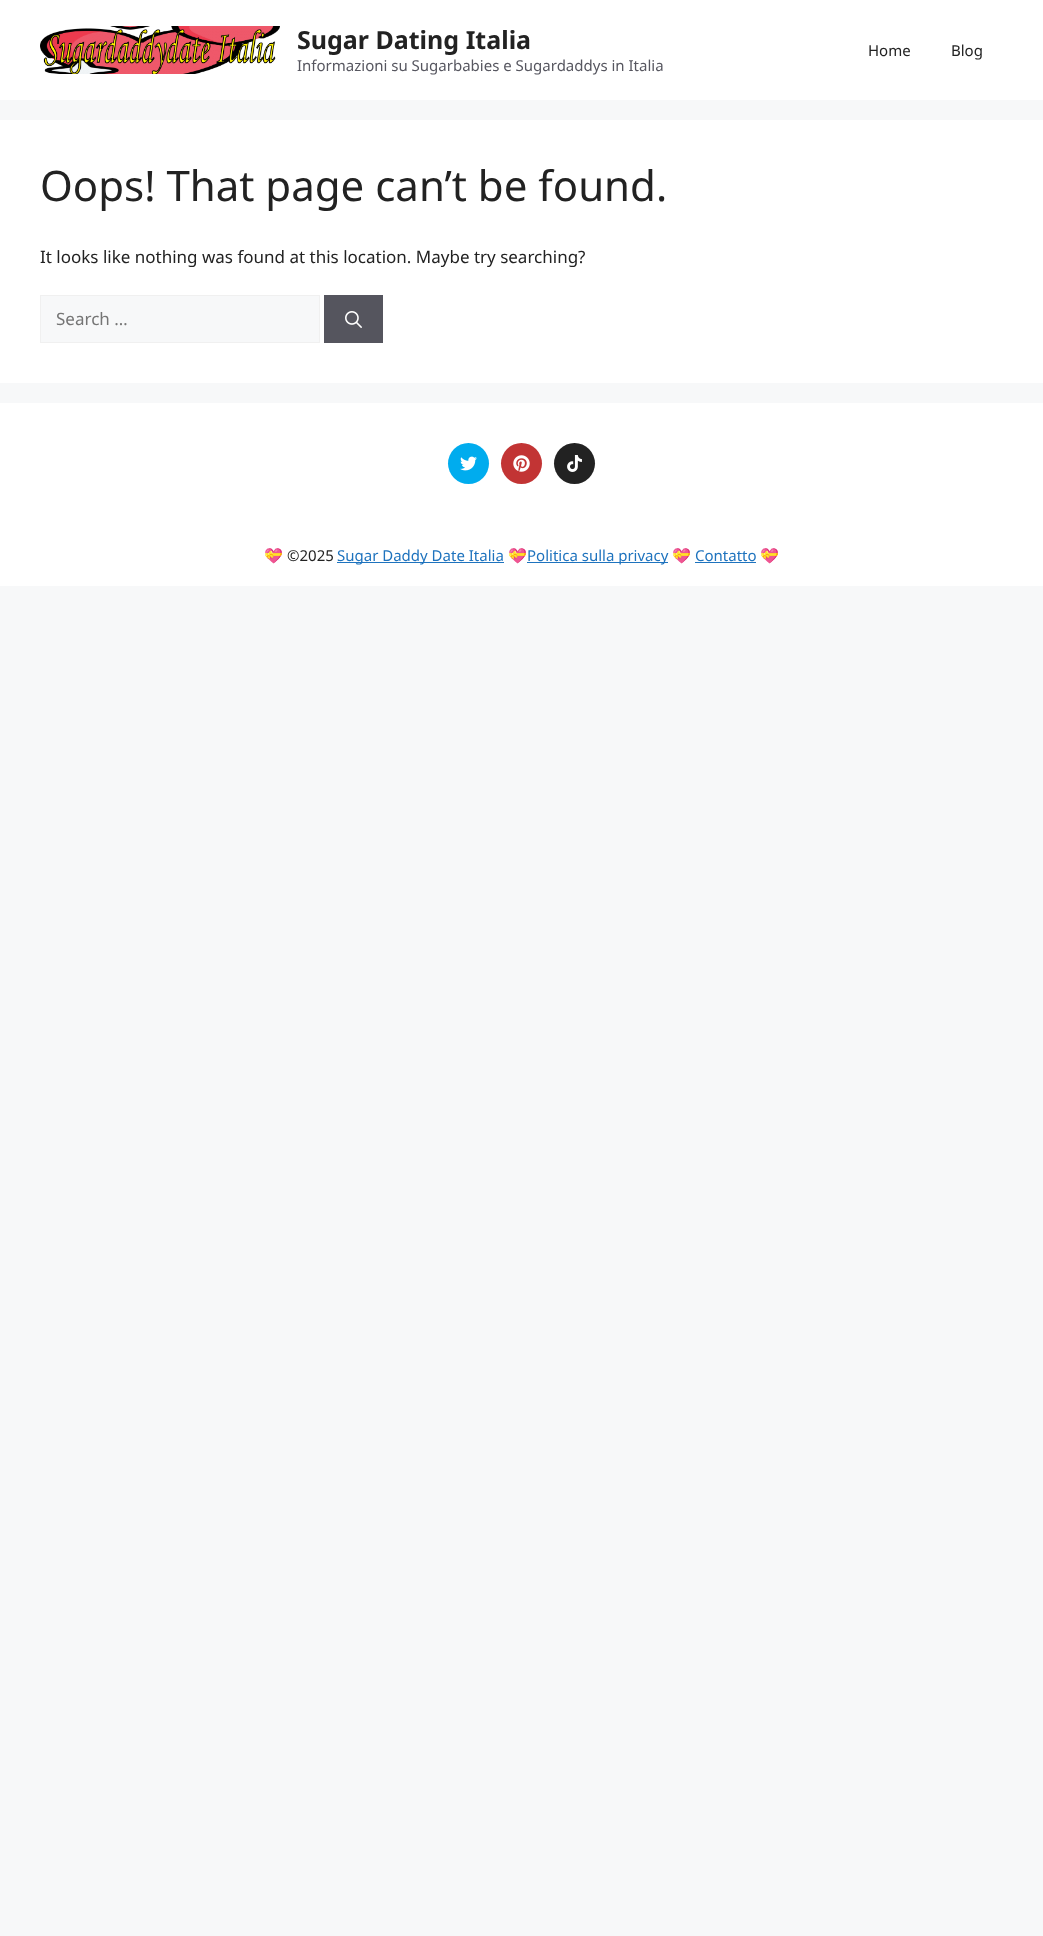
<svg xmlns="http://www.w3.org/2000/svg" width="1043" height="1936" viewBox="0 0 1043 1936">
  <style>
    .t1 { font: bold 25px Noto Sans; fill: #222; }
    .t2 { font: 15px Noto Sans; fill: #575760; }
    .t3 { font: 15px Noto Sans; fill: #222; }
    .t4 { font: 42px Noto Sans; fill: #222; }
    .t5 { font: 17px Noto Sans; fill: #222; }
    .t6 { font: 17px Noto Sans; fill: #757575; }
    .t7 { font: 15px Noto Color Emoji; fill: #222; }
    .t8 { font: 15px Noto Sans; fill: #1e73be; }
  </style>
  <rect width="100%" height="100%" fill="#f7f8f9"/>
  <rect x="0" y="0" width="1043" height="100" fill="#fff"/>
  <image x="40" y="26" width="240" height="48" href="images/1.png"/>
  <text x="297" y="49" class="t1">Sugar Dating Italia</text>
  <text x="297" y="71" class="t2">Informazioni su Sugarbabies e Sugardaddys in Italia</text>
  <text x="868" y="56" class="t3">Home</text>
  <text x="951" y="56" class="t3">Blog</text>
  <rect x="0" y="120" width="1043" height="263" fill="#fff"/>
  <text x="40" y="201" class="t4">Oops! That page can’t be found.</text>
  <text x="40" y="263" class="t5">It looks like nothing was found at this location. Maybe try searching?</text>
  <rect x="40.5" y="295.5" width="279" height="47" fill="#f7f8f9" stroke="#f0f0f0"/>
  <text x="56" y="325" class="t6">Search …</text>
  <rect x="324" y="295" width="59" height="48" fill="#55555e"/>
  <image x="345" y="311" width="17" height="17" href="images/2.png"/>
  <rect x="0" y="403" width="1043" height="183" fill="#fff"/>
  <circle cx="468.5" cy="463.5" r="20.5" fill="#00acee"/>
  <image x="460" y="456" width="17" height="15" href="images/3.png"/>
  <circle cx="521.5" cy="463.5" r="20.5" fill="#c23434"/>
  <image x="513" y="455" width="17" height="17" href="images/4.png"/>
  <circle cx="574.5" cy="463.5" r="20.5" fill="#222"/>
  <image x="567" y="455" width="15" height="17" href="images/5.png"/>
  <text x="264" y="561" class="t7">💝</text>
  <text x="287" y="561" class="t3">©2025</text>
  <rect x="337" y="562" width="167" height="1" fill="#1e73be"/>
  <text x="337" y="561" class="t8">Sugar Daddy Date Italia</text>
  <text x="508" y="561" class="t7">💝</text>
  <rect x="527" y="562" width="141" height="1" fill="#1e73be"/>
  <text x="527" y="561" class="t8">Politica sulla privacy</text>
  <text x="672" y="561" class="t7">💝</text>
  <text x="695" y="561" class="t8">Contatto</text>
  <rect x="695" y="562" width="61" height="1" fill="#1e73be"/>
  <text x="760" y="561" class="t7">💝</text>
</svg>
